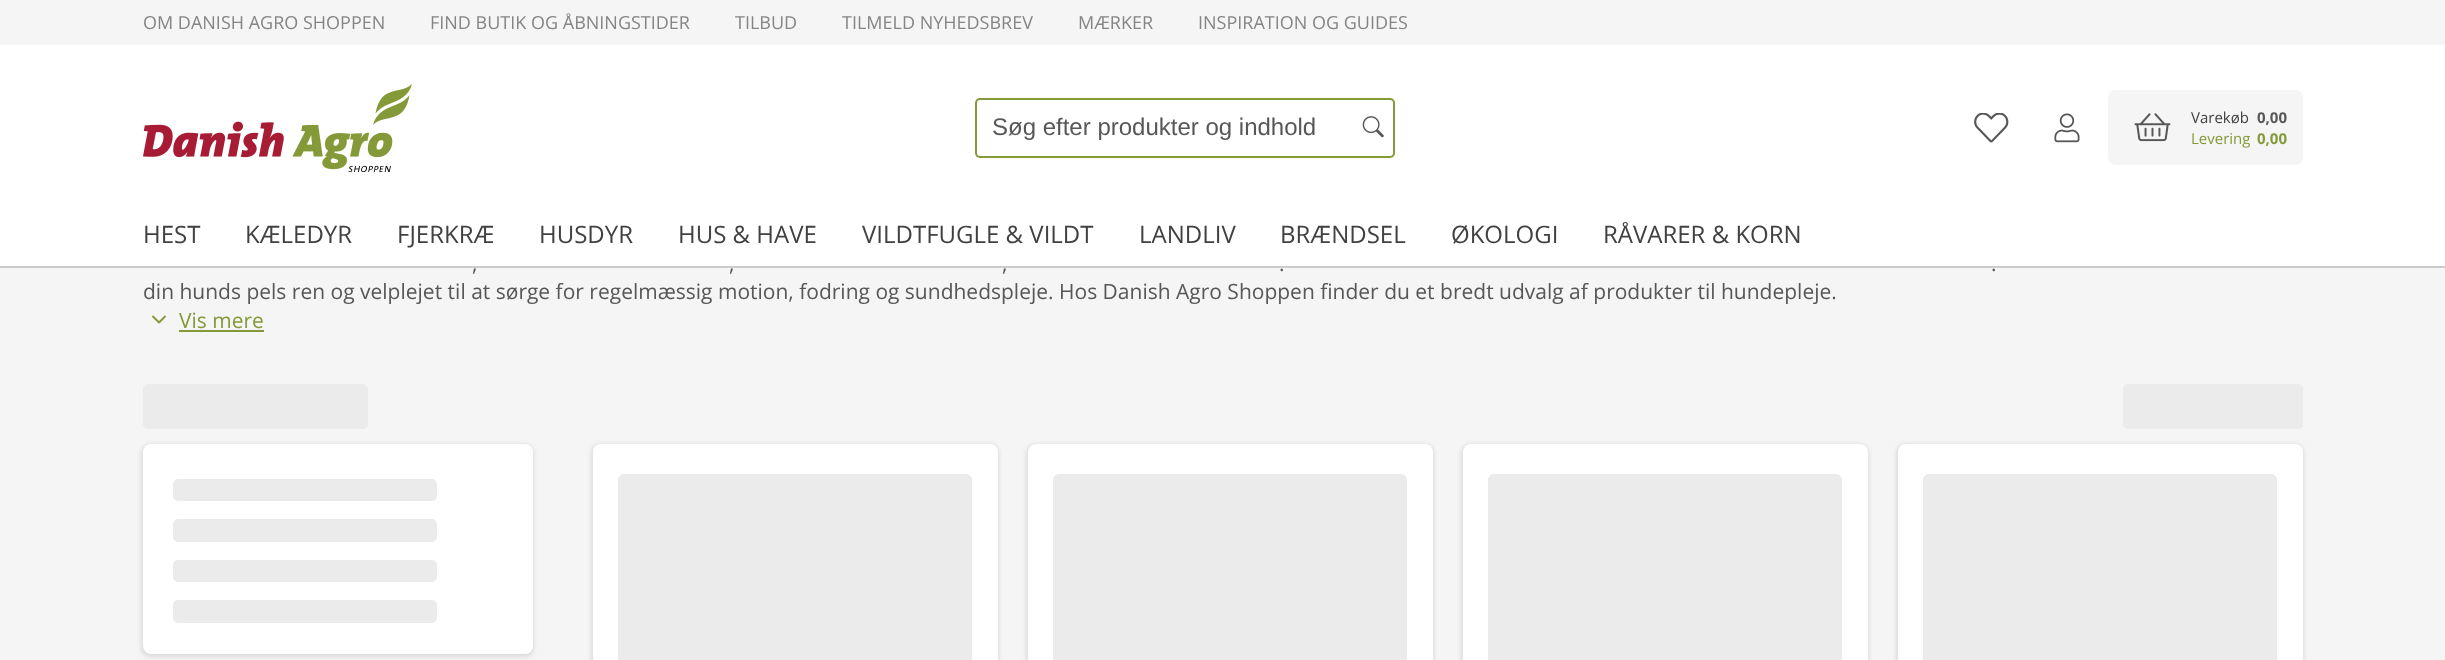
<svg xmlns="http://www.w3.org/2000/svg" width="2445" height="660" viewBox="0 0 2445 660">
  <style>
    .t1 { font: 18px Open Sans; fill: #858585; }
    .t2 { font: 24px Liberation Sans; fill: #575757; }
    .t3 { font: 15px Open Sans; fill: #414142; }
    .t4 { font: bold 15px Open Sans; fill: #575757; }
    .t5 { font: 15px Open Sans; fill: #849938; }
    .t6 { font: bold 15px Open Sans; fill: #849938; }
    .t7 { font: 24px Open Sans; fill: #414142; }
    .t8 { font: 21px Open Sans; fill: #575757; }
    .t9 { font: 21px Open Sans; fill: #849938; }
  </style>
  <rect width="100%" height="100%" fill="#f5f5f5"/>
  <rect x="0" y="45" width="2445" height="221" fill="#fff"/>
  <rect x="0" y="266" width="2445" height="2" fill="#ccc"/>
  <text x="143" y="29" class="t1">OM DANISH AGRO SHOPPEN</text>
  <text x="430" y="29" class="t1">FIND BUTIK OG ÅBNINGSTIDER</text>
  <text x="735" y="29" class="t1">TILBUD</text>
  <text x="842" y="29" class="t1">TILMELD NYHEDSBREV</text>
  <text x="1078" y="29" class="t1">MÆRKER</text>
  <text x="1198" y="29" class="t1">INSPIRATION OG GUIDES</text>
  <image x="143" y="84" width="269" height="88" href="images/1.png"/>
  <rect x="976" y="99" width="418" height="58" rx="4" fill="none" stroke="#849938" stroke-width="2"/>
  <text x="992" y="135" class="t2">Søg efter produkter og indhold</text>
  <image x="1362" y="116" width="22" height="22" href="images/2.png"/>
  <image x="1974" y="113" width="35" height="30" href="images/3.png"/>
  <image x="2054" y="113" width="26" height="30" href="images/4.png"/>
  <rect x="2108" y="90" width="195" height="75" rx="8" fill="#f5f5f5"/>
  <image x="2134" y="113" width="37" height="29" href="images/5.png"/>
  <text x="2191" y="123" class="t3">Varekøb</text>
  <text x="2257" y="123" class="t4">0,00</text>
  <text x="2191" y="144" class="t5">Levering</text>
  <text x="2257" y="144" class="t6">0,00</text>
  <text x="143" y="243" class="t7">HEST</text>
  <text x="245" y="243" class="t7">KÆLEDYR</text>
  <text x="397" y="243" class="t7">FJERKRÆ</text>
  <text x="539" y="243" class="t7">HUSDYR</text>
  <text x="678" y="243" class="t7">HUS &amp; HAVE</text>
  <text x="862" y="243" class="t7">VILDTFUGLE &amp; VILDT</text>
  <text x="1139" y="243" class="t7">LANDLIV</text>
  <text x="1280" y="243" class="t7">BRÆNDSEL</text>
  <text x="1451" y="243" class="t7">ØKOLOGI</text>
  <text x="1603" y="243" class="t7">RÅVARER &amp; KORN</text>
  <text x="472" y="271" class="t8">,</text>
  <text x="729" y="271" class="t8">,</text>
  <text x="1002" y="271" class="t8">,</text>
  <text x="1279" y="271" class="t8">.</text>
  <text x="1991" y="271" class="t8">.</text>
  <text x="143" y="299" class="t8">din hunds pels ren og velplejet til at sørge for regelmæssig motion, fodring og sundhedspleje. Hos Danish Agro Shoppen finder du et bredt udvalg af produkter til hundepleje.</text>
  <image x="152" y="315" width="14" height="9" href="images/6.png"/>
  <text x="179" y="328" class="t9">Vis mere</text>
  <rect x="179" y="330" width="85" height="2" fill="#849938"/>
  <rect x="143" y="384" width="225" height="45" rx="5" fill="#ebebeb"/>
  <rect x="141" y="444" width="393" height="213" rx="9" fill="#0000001a" filter="blur(2px)"/>
  <rect x="143" y="444" width="390" height="210" rx="8" fill="#fff"/>
  <rect x="173" y="479" width="264" height="22" rx="5" fill="#ebebeb"/>
  <rect x="173" y="519" width="264" height="23" rx="5" fill="#ebebeb"/>
  <rect x="173" y="560" width="264" height="22" rx="5" fill="#ebebeb"/>
  <rect x="173" y="600" width="264" height="23" rx="5" fill="#ebebeb"/>
  <rect x="2123" y="384" width="180" height="45" rx="5" fill="#ebebeb"/>
  <rect x="591" y="444" width="408" height="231" rx="9" fill="#0000001a" filter="blur(2px)"/>
  <rect x="593" y="444" width="405" height="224" rx="8" fill="#fff"/>
  <rect x="618" y="474" width="354" height="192" rx="6" fill="#ebebeb"/>
  <rect x="1026" y="444" width="408" height="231" rx="9" fill="#0000001a" filter="blur(2px)"/>
  <rect x="1028" y="444" width="405" height="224" rx="8" fill="#fff"/>
  <rect x="1053" y="474" width="354" height="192" rx="6" fill="#ebebeb"/>
  <rect x="1461" y="444" width="408" height="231" rx="9" fill="#0000001a" filter="blur(2px)"/>
  <rect x="1463" y="444" width="405" height="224" rx="8" fill="#fff"/>
  <rect x="1488" y="474" width="354" height="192" rx="6" fill="#ebebeb"/>
  <rect x="1896" y="444" width="408" height="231" rx="9" fill="#0000001a" filter="blur(2px)"/>
  <rect x="1898" y="444" width="405" height="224" rx="8" fill="#fff"/>
  <rect x="1923" y="474" width="354" height="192" rx="6" fill="#ebebeb"/>
</svg>
